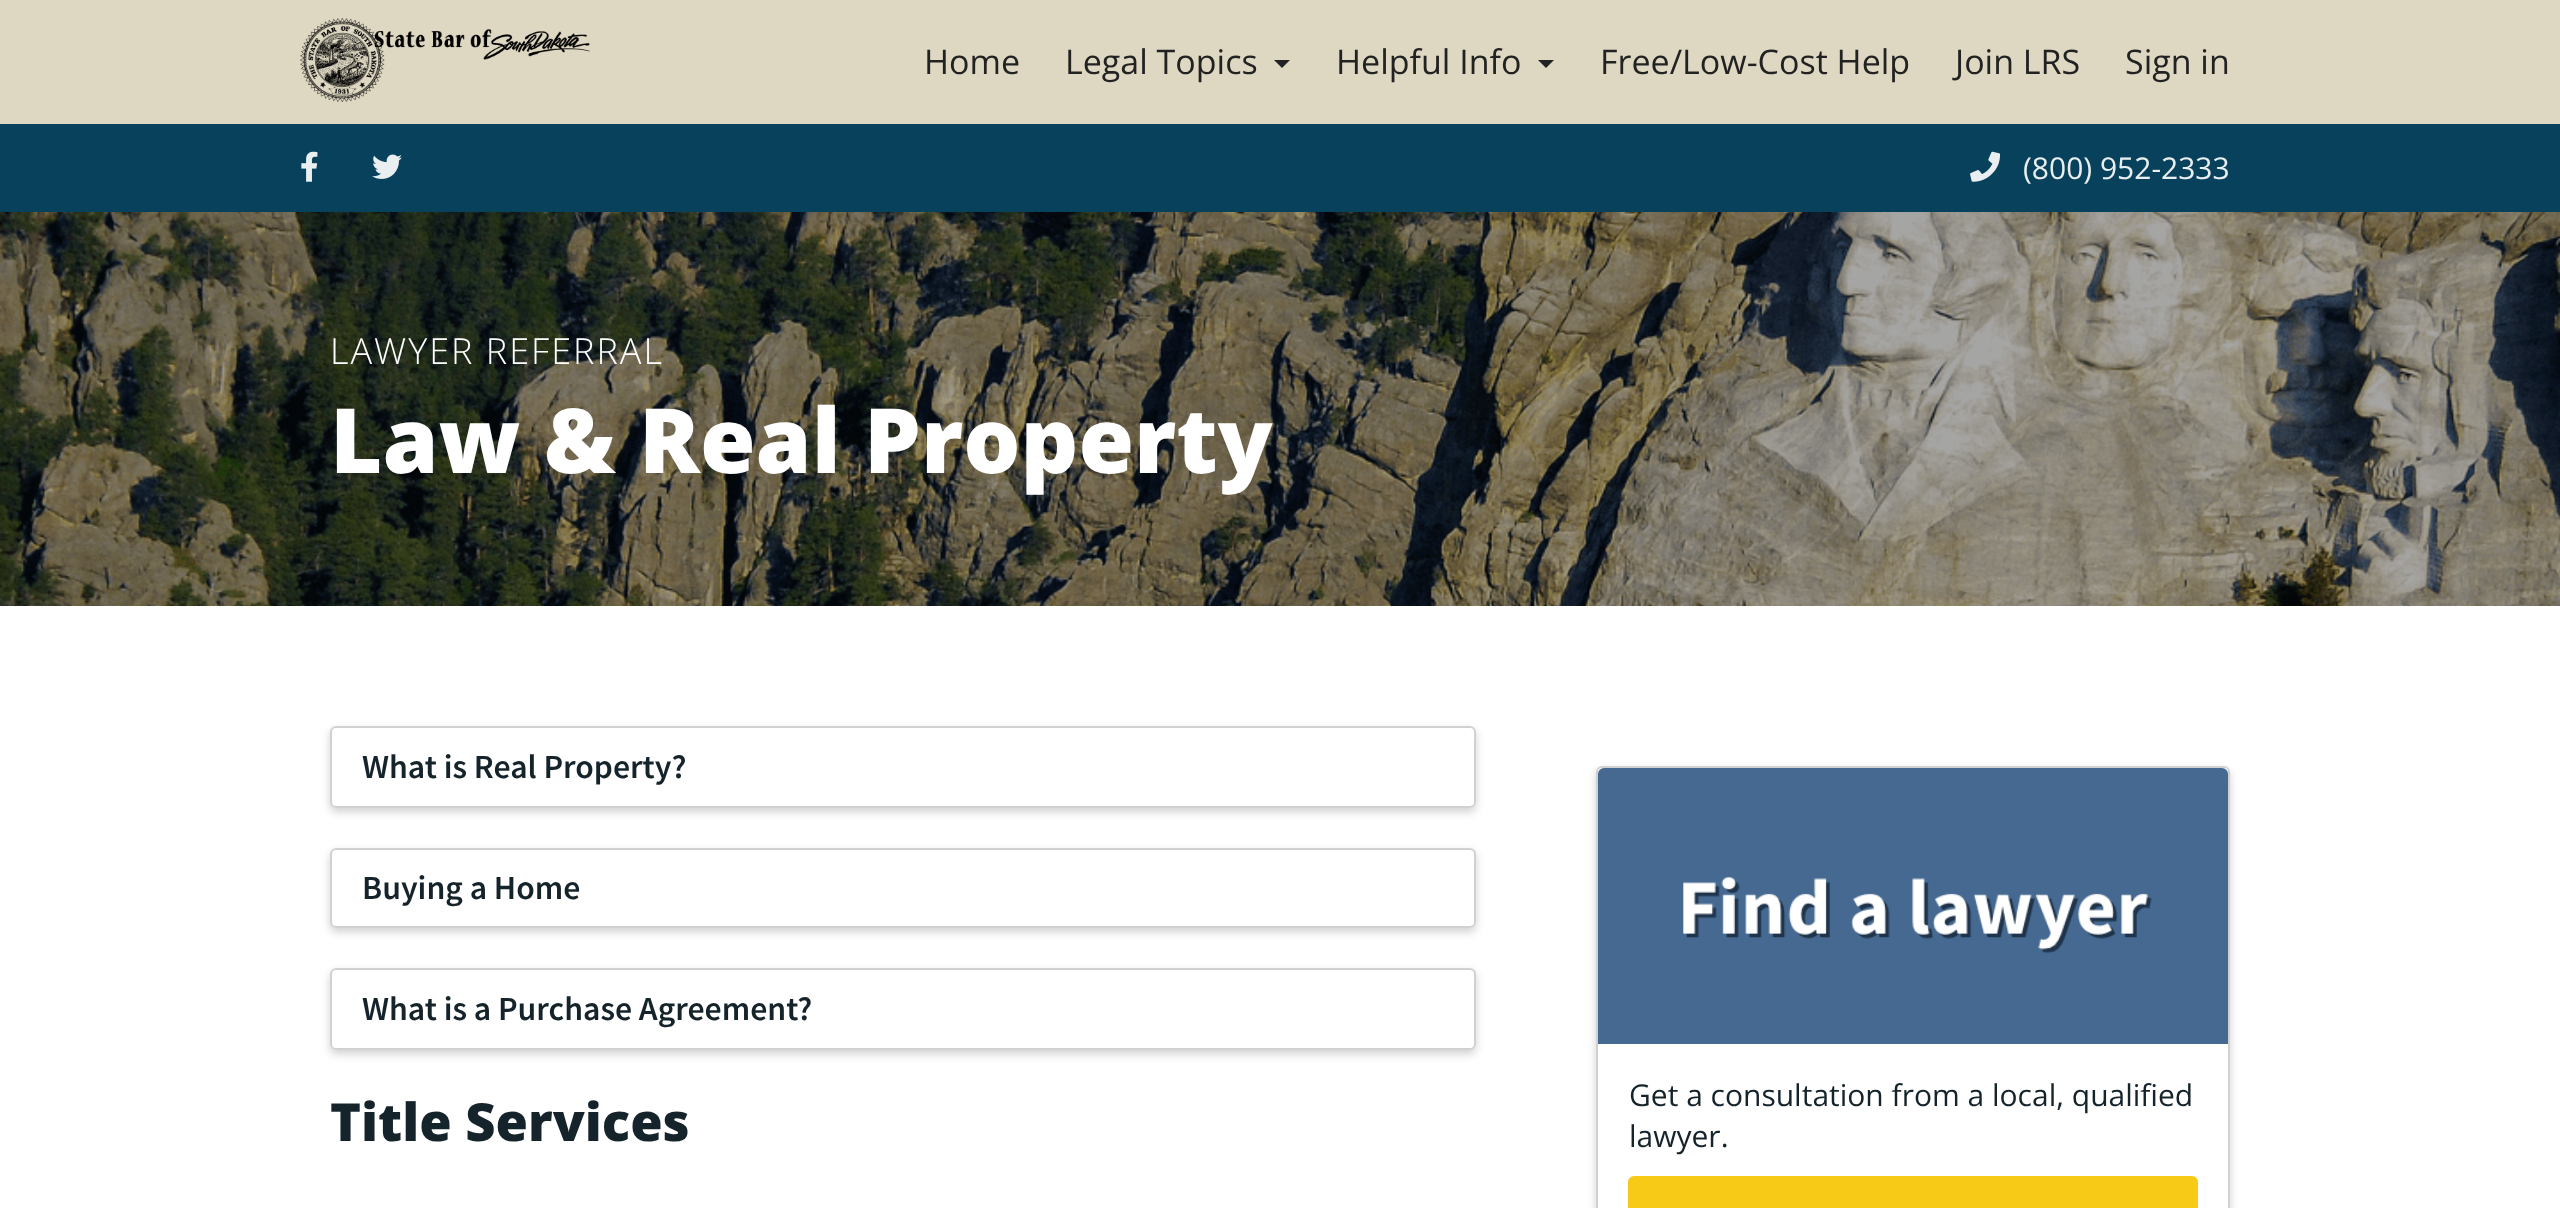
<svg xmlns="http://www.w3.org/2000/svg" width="2560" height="1208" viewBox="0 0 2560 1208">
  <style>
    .t1 { font: 34px Open Sans; fill: #222; }
    .t2 { font: 30px Open Sans; fill: #e9eff0; }
    .t3 { font: 300 36px Open Sans; letter-spacing: 2px; fill: #fff; }
    .t4 { font: 800 90px Open Sans; fill: #fff; }
    .t5 { font: 600 33.75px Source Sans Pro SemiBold; fill: #15232b; }
    .t6 { font: 800 52.5px Open Sans; fill: #15232b; }
    .t7 { font: 30px Open Sans; fill: #15232b; }
  </style>
  <defs>
    <clipPath id="clip1"><path d="M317 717H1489V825H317ZM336 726H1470C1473.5 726 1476 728.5 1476 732V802C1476 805.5 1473.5 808 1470 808H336C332.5 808 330 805.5 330 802V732C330 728.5 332.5 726 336 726Z" clip-rule="evenodd"/></clipPath>
    <clipPath id="clip2"><path d="M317 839H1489V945H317ZM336 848H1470C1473.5 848 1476 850.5 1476 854V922C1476 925.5 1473.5 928 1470 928H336C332.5 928 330 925.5 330 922V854C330 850.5 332.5 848 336 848Z" clip-rule="evenodd"/></clipPath>
    <clipPath id="clip3"><path d="M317 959H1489V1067H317ZM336 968H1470C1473.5 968 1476 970.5 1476 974V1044C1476 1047.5 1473.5 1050 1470 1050H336C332.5 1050 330 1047.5 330 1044V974C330 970.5 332.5 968 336 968Z" clip-rule="evenodd"/></clipPath>
  </defs>
  <rect width="100%" height="100%" fill="#fff"/>
  <rect x="0" y="0" width="2560" height="124" fill="#ded8c2"/>
  <image x="300" y="18" width="290" height="84" href="images/1.png"/>
  <text x="924" y="74" class="t1">Home</text>
  <text x="1065" y="74" class="t1">Legal Topics</text>
  <path d="M1274 60H1290L1282 68Z" fill="#222"/>
  <text x="1336" y="74" class="t1">Helpful Info</text>
  <path d="M1538 60H1554L1546 68Z" fill="#222"/>
  <text x="1600" y="74" class="t1">Free/Low-Cost Help</text>
  <text x="1955" y="74" class="t1">Join LRS</text>
  <text x="2125" y="74" class="t1">Sign in</text>
  <rect x="0" y="124" width="2560" height="88" fill="#08415c"/>
  <image x="301" y="151" width="17" height="31" href="images/2.png"/>
  <image x="372" y="154" width="30" height="25" href="images/3.png"/>
  <image x="1970" y="151" width="31" height="31" href="images/4.png"/>
  <text x="2023" y="179" class="t2">(800) 952-2333</text>
  <image x="0" y="212" width="2560" height="394" href="images/5.png"/>
  <text x="330" y="364" class="t3">LAWYER REFERRAL</text>
  <text x="330" y="473" class="t4">Law &amp; Real Property</text>
  <g clip-path="url(#clip1)">
    <rect x="330" y="730" width="1146" height="82" rx="6" fill="#0000002e" filter="blur(4px)"/>
  </g>
  <rect x="331" y="727" width="1144" height="80" rx="5" fill="none" stroke="#0000002e" stroke-width="2"/>
  <text x="362" y="778" class="t5">What is Real Property?</text>
  <g clip-path="url(#clip2)">
    <rect x="330" y="852" width="1146" height="80" rx="6" fill="#0000002e" filter="blur(4px)"/>
  </g>
  <rect x="331" y="849" width="1144" height="78" rx="5" fill="none" stroke="#0000002e" stroke-width="2"/>
  <text x="362" y="899" class="t5">Buying a Home</text>
  <g clip-path="url(#clip3)">
    <rect x="330" y="972" width="1146" height="82" rx="6" fill="#0000002e" filter="blur(4px)"/>
  </g>
  <rect x="331" y="969" width="1144" height="80" rx="5" fill="none" stroke="#0000002e" stroke-width="2"/>
  <text x="362" y="1020" class="t5">What is a Purchase Agreement?</text>
  <text x="330" y="1141" class="t6">Title Services</text>
  <rect x="1596" y="770" width="634" height="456" rx="6" fill="#0000002e" filter="blur(4px)"/>
  <rect x="1597" y="767" width="632" height="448" rx="5" fill="#fff" stroke="#d1d1d1" stroke-width="2"/>
  <image x="1598" y="768" width="630" height="276" href="images/6.png"/>
  <text x="1629" y="1106" class="t7">Get a consultation from a local, qualified</text>
  <text x="1629" y="1147" class="t7">lawyer.</text>
  <rect x="1628" y="1176" width="570" height="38" rx="6" fill="#f7ca18"/>
</svg>
